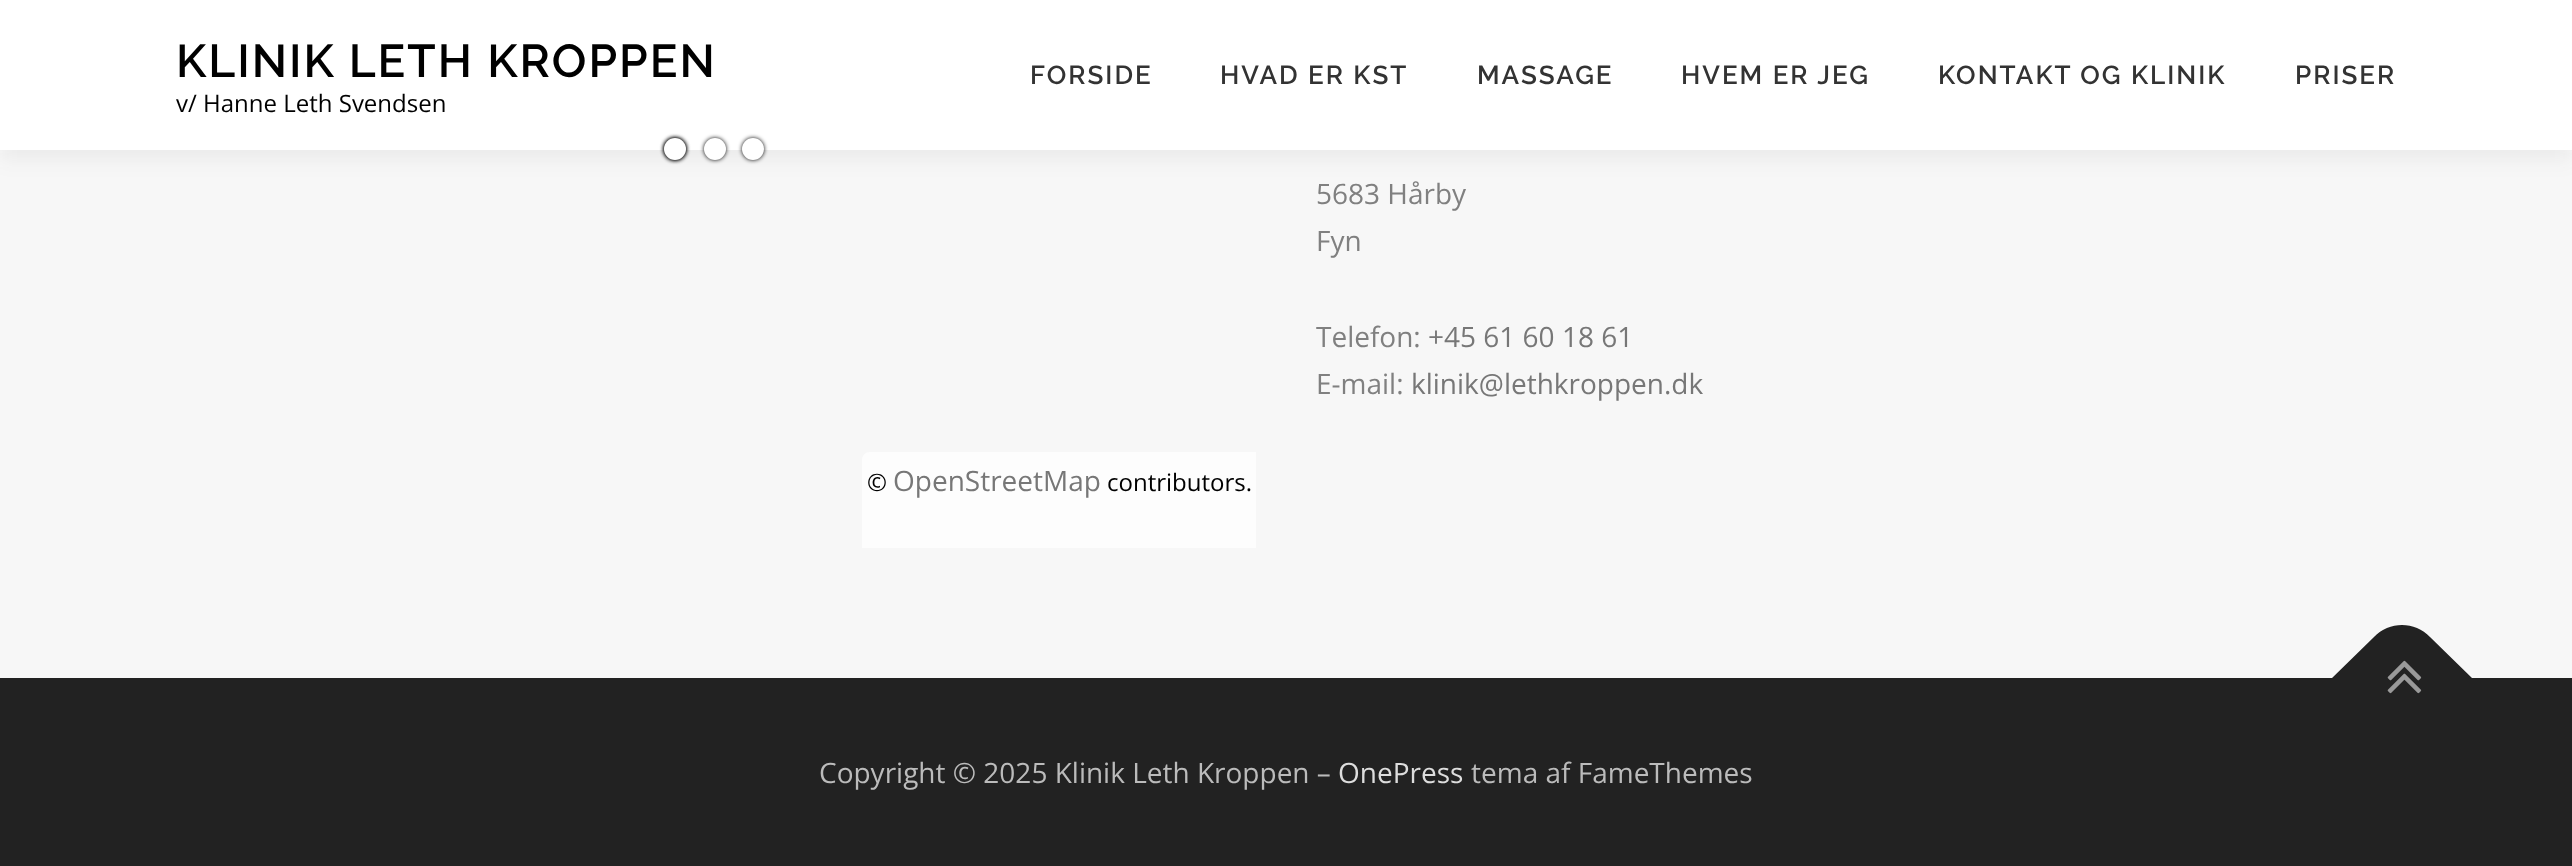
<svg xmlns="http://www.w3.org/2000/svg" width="2572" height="866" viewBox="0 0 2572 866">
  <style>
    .t1 { font: 600 46px Raleway; letter-spacing: 2px; fill: #000; }
    .t2 { font: 24px Open Sans; fill: #000; }
    .t3 { font: 600 26px Raleway; letter-spacing: 2px; fill: #333; }
    .t4 { font: 28px Open Sans; fill: #808080; }
    .t5 { font: 28px Open Sans; fill: #777; }
    .t6 { font: 28px Open Sans; fill: #bbb; }
    .t7 { font: 28px Open Sans; fill: #ddd; }
  </style>
  <rect width="100%" height="100%" fill="#f7f7f7"/>
  <rect x="0" y="10" width="2572" height="150" fill="#3232320f" filter="blur(10px)"/>
  <rect x="0" y="0" width="2572" height="150" fill="#fff"/>
  <text x="176" y="77" class="t1">KLINIK LETH KROPPEN</text>
  <text x="176" y="112" class="t2">v/ Hanne Leth Svendsen</text>
  <text x="1030" y="84" class="t3">FORSIDE</text>
  <text x="1220" y="84" class="t3">HVAD ER KST</text>
  <text x="1477" y="84" class="t3">MASSAGE</text>
  <text x="1681" y="84" class="t3">HVEM ER JEG</text>
  <text x="1938" y="84" class="t3">KONTAKT OG KLINIK</text>
  <text x="2295" y="84" class="t3">PRISER</text>
  <text x="1316" y="204" class="t4">5683 Hårby</text>
  <text x="1316" y="251" class="t4">Fyn</text>
  <text x="1316" y="347" class="t4">Telefon:</text>
  <text x="1428" y="347" class="t5">+45 61 60 18 61</text>
  <text x="1316" y="394" class="t4">E-mail:</text>
  <text x="1411" y="394" class="t5">klinik@lethkroppen.dk</text>
  <rect x="664" y="138" width="22" height="22" rx="11" fill="#000" filter="blur(2px)"/>
  <rect x="664" y="138" width="22" height="22" rx="11" fill="#000" filter="blur(2px)"/>
  <circle cx="675" cy="149" r="11" fill="#fff"/>
  <rect x="704" y="138" width="22" height="22" rx="11" fill="#000" filter="blur(2px)"/>
  <circle cx="715" cy="149" r="11" fill="#fff"/>
  <rect x="742" y="138" width="22" height="22" rx="11" fill="#000" filter="blur(2px)"/>
  <circle cx="753" cy="149" r="11" fill="#fff"/>
  <path d="M870 452H1256V548H862V460C862 455.5 865.5 452 870 452Z" fill="#fdfdfd"/>
  <text x="867" y="491" class="t2">©</text>
  <text x="893" y="491" class="t5">OpenStreetMap</text>
  <text x="1107" y="491" class="t2">contributors.</text>
  <rect x="0" y="678" width="2572" height="188" fill="#222"/>
  <path d="M2331 679L2374 637C2389 621 2415 621 2430 637L2473 679L2402 750Z" fill="#222"/>
  <image x="2387" y="660" width="35" height="34" href="images/1.png"/>
  <text x="819" y="783" class="t6">Copyright © 2025 Klinik Leth Kroppen –</text>
  <text x="1338" y="783" class="t7">OnePress</text>
  <text x="1471" y="783" class="t6">tema af FameThemes</text>
</svg>
